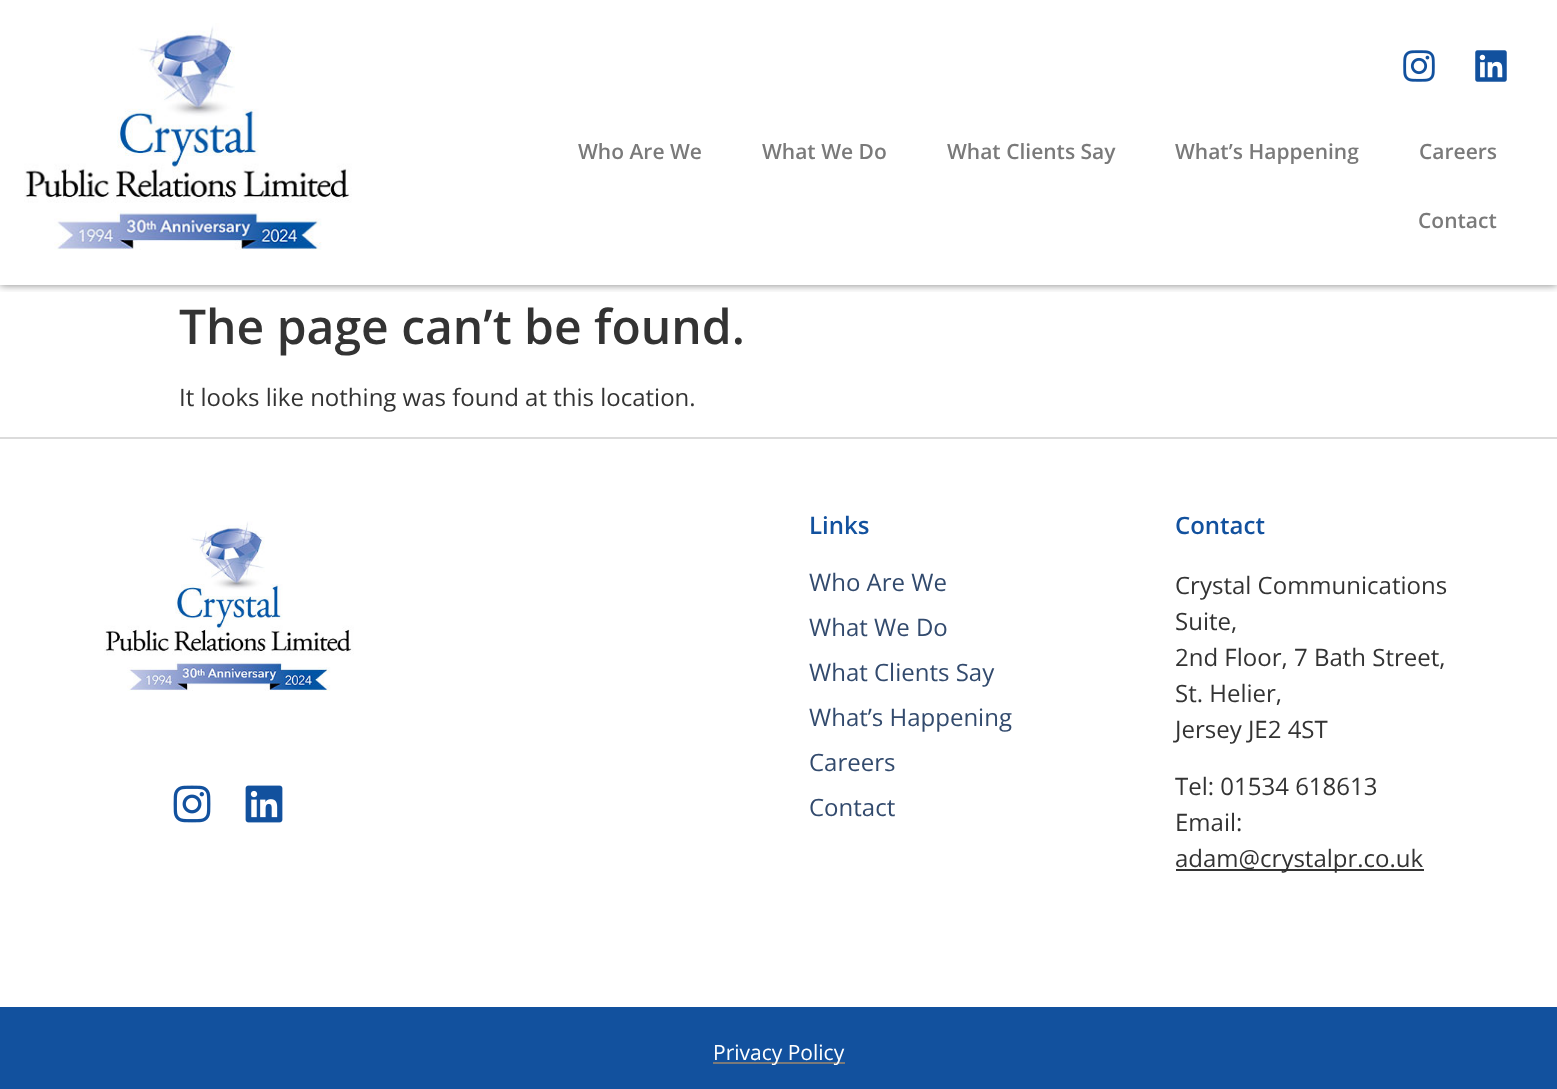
<svg xmlns="http://www.w3.org/2000/svg" width="1557" height="1089" viewBox="0 0 1557 1089">
  <style>
    .t1 { font: 600 21px Open Sans; fill: #7a7a7a; }
    .t2 { font: 600 48px Open Sans; fill: #333; }
    .t3 { font: 24px Open Sans; fill: #333; }
    .t4 { font: 600 24px Open Sans; fill: #12519e; }
    .t5 { font: 24px Open Sans; fill: #324a6d; }
    .t6 { font: 21px Open Sans; fill: #fff; }
  </style>
  <defs>
    <clipPath id="clip1"><rect x="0" y="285" width="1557" height="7"/></clipPath>
  </defs>
  <rect width="100%" height="100%" fill="#fff"/>
  <g clip-path="url(#clip1)">
    <rect x="0" y="0" width="1557" height="285" fill="#00000080" filter="blur(4px)"/>
  </g>
  <image x="24" y="23" width="328" height="227" href="images/1.png"/>
  <image x="1403" y="50" width="32" height="32" href="images/2.png"/>
  <image x="1475" y="50" width="32" height="32" href="images/3.png"/>
  <text x="578" y="159" class="t1">Who Are We</text>
  <text x="762" y="159" class="t1">What We Do</text>
  <text x="947" y="159" class="t1">What Clients Say</text>
  <text x="1175" y="159" class="t1">What’s Happening</text>
  <text x="1419" y="159" class="t1">Careers</text>
  <text x="1418" y="228" class="t1">Contact</text>
  <text x="179" y="344" class="t2">The page can’t be found.</text>
  <text x="179" y="406" class="t3">It looks like nothing was found at this location.</text>
  <rect x="0" y="437" width="1557" height="2" fill="#dbdbdb"/>
  <image x="104" y="521" width="250" height="170" href="images/4.png"/>
  <image x="173" y="785" width="38" height="38" href="images/5.png"/>
  <image x="245" y="785" width="38" height="38" href="images/6.png"/>
  <text x="809" y="534" class="t4">Links</text>
  <text x="809" y="591" class="t5">Who Are We</text>
  <text x="809" y="636" class="t5">What We Do</text>
  <text x="809" y="681" class="t5">What Clients Say</text>
  <text x="809" y="726" class="t5">What’s Happening</text>
  <text x="809" y="771" class="t5">Careers</text>
  <text x="809" y="816" class="t5">Contact</text>
  <text x="1175" y="534" class="t4">Contact</text>
  <text x="1175" y="594" class="t3">Crystal Communications</text>
  <text x="1175" y="630" class="t3">Suite,</text>
  <text x="1175" y="666" class="t3">2nd Floor, 7 Bath Street,</text>
  <text x="1175" y="702" class="t3">St. Helier,</text>
  <text x="1175" y="738" class="t3">Jersey JE2 4ST</text>
  <text x="1175" y="795" class="t3">Tel: 01534 618613</text>
  <text x="1175" y="831" class="t3">Email:</text>
  <rect x="1176" y="869" width="248" height="2" fill="#333"/>
  <text x="1175" y="867" class="t3">adam@crystalpr.co.uk</text>
  <rect x="0" y="1007" width="1557" height="82" fill="#12519e"/>
  <rect x="713" y="1062" width="132" height="2" fill="#7a7a7a"/>
  <text x="713" y="1060" class="t6">Privacy Policy</text>
</svg>
